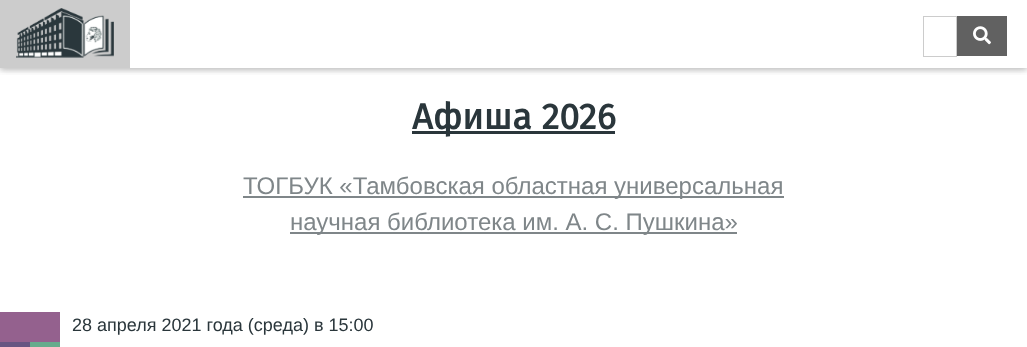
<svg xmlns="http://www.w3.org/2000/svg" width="1027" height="347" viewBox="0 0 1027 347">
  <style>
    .t1 { font: bold 36px Fira Sans; fill: #2a363b; }
    .t2 { font: 24px Liberation Sans; fill: #7f8689; }
    .t3 { font: 18px Liberation Sans; fill: #2a363b; }
  </style>
  <defs>
    <clipPath id="clip1"><rect x="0" y="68" width="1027" height="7"/></clipPath>
    <clipPath id="clip2"><rect x="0" y="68" width="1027" height="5"/></clipPath>
  </defs>
  <rect width="100%" height="100%" fill="#fff"/>
  <g clip-path="url(#clip1)">
    <rect x="0" y="2" width="1027" height="68" fill="#0000001f" filter="blur(5px)"/>
  </g>
  <g clip-path="url(#clip2)">
    <rect x="0" y="2" width="1027" height="68" fill="#00000029" filter="blur(2.5px)"/>
  </g>
  <rect x="0" y="0" width="130" height="68" fill="#ccc"/>
  <image x="16" y="8" width="98" height="50" href="images/1.png"/>
  <rect x="923.5" y="16.5" width="33" height="40" fill="none" stroke="#ccc"/>
  <rect x="957" y="16" width="50" height="40" fill="#616161"/>
  <image x="973" y="26" width="18" height="19" href="images/2.png"/>
  <rect x="412" y="131" width="203" height="3" fill="#2a363b"/>
  <text x="412" y="129" class="t1">Афиша 2026</text>
  <rect x="243" y="196" width="541" height="2" fill="#7f8689"/>
  <text x="243" y="194" class="t2">ТОГБУК «Тамбовская областная универсальная</text>
  <rect x="290" y="232" width="447" height="2" fill="#7f8689"/>
  <text x="290" y="230" class="t2">научная библиотека им. А. С. Пушкина»</text>
  <rect x="0" y="312" width="60" height="30" fill="#94618e"/>
  <rect x="0" y="342" width="30" height="5" fill="#675682"/>
  <rect x="30" y="342" width="30" height="5" fill="#66ab8c"/>
  <text x="72" y="331" class="t3">28 апреля 2021 года (среда) в 15:00</text>
</svg>
